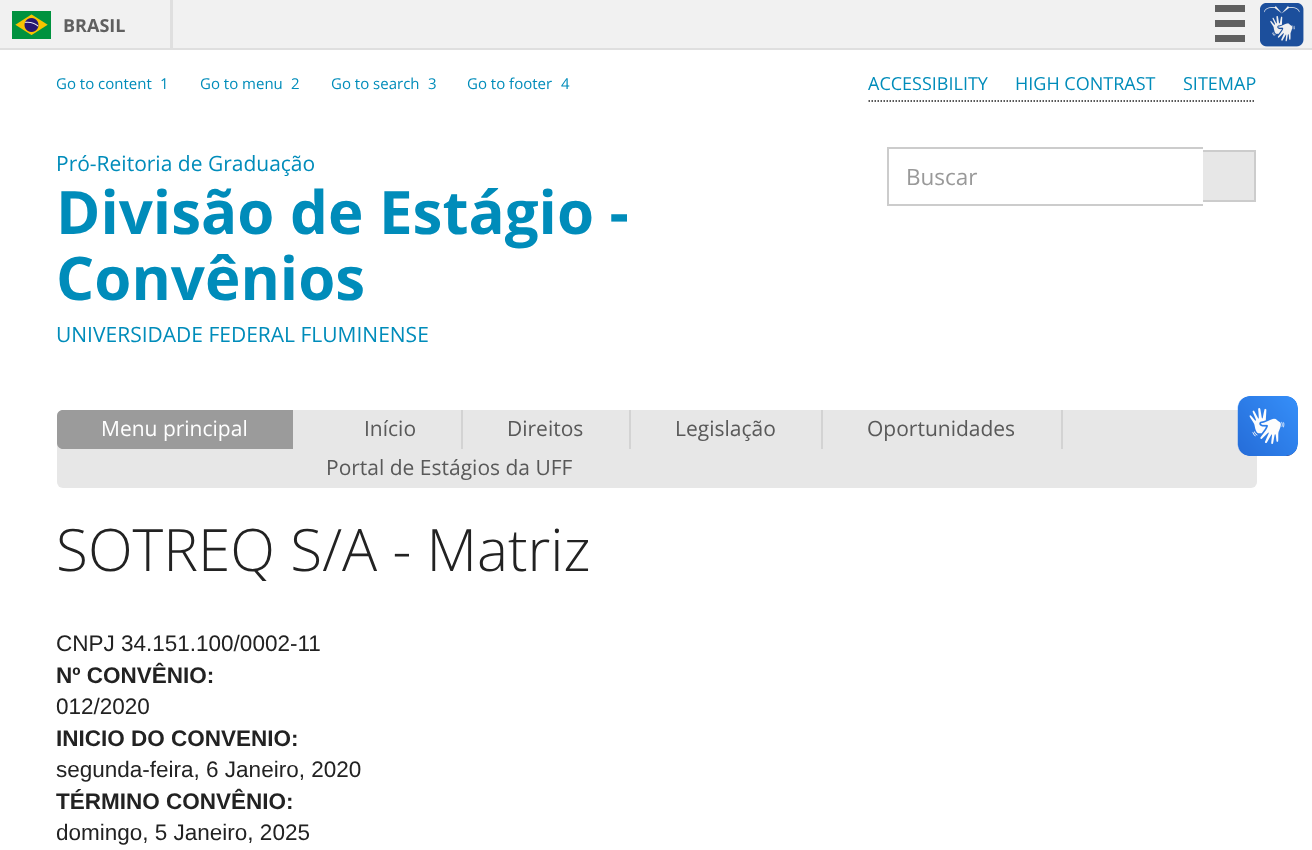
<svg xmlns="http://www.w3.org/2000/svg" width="1312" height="850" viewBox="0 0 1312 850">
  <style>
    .t1 { font: bold 18px Open Sans; fill: #606060; }
    .t2 { font: 15px Open Sans; fill: #008cba; }
    .t3 { font: 18px Open Sans; fill: #008cba; }
    .t4 { font: 21px Open Sans; fill: #008cba; }
    .t5 { font: bold 60px Open Sans; fill: #008cba; }
    .t6 { font: 22.5px Open Sans; fill: #999; }
    .t7 { font: 21px Open Sans; fill: #fff; }
    .t8 { font: 21px Open Sans; fill: #595959; }
    .t9 { font: 300 58.5px Open Sans; fill: #222; }
    .t10 { font: 22.5px Liberation Sans; fill: #222; }
    .t11 { font: bold 22.5px Liberation Sans; fill: #222; }
  </style>
  <rect width="100%" height="100%" fill="#fff"/>
  <rect x="0" y="0" width="1312" height="48" fill="#f1f1f1"/>
  <rect x="0" y="48" width="1312" height="2" fill="#dfdfdf"/>
  <rect x="170" y="0" width="3" height="48" fill="#dfdfdf"/>
  <image x="12" y="11" width="39" height="28" href="images/1.png"/>
  <text x="63" y="32" class="t1">BRASIL</text>
  <rect x="1215" y="5" width="30" height="7" fill="#606060"/>
  <rect x="1215" y="20" width="30" height="7" fill="#606060"/>
  <rect x="1215" y="35" width="30" height="7" fill="#606060"/>
  <image x="1260" y="3" width="44" height="44" href="images/2.png"/>
  <text x="56" y="89" class="t2">Go to content</text>
  <text x="160" y="89" class="t2">1</text>
  <text x="200" y="89" class="t2">Go to menu</text>
  <text x="291" y="89" class="t2">2</text>
  <text x="331" y="89" class="t2">Go to search</text>
  <text x="428" y="89" class="t2">3</text>
  <text x="467" y="89" class="t2">Go to footer</text>
  <text x="561" y="89" class="t2">4</text>
  <path d="M868.5 101H1255.5" fill="none" stroke="#222" stroke-width="1.5" stroke-dasharray="1.5 1.5"/>
  <text x="868" y="90" class="t3">ACCESSIBILITY</text>
  <text x="1015" y="90" class="t3">HIGH CONTRAST</text>
  <text x="1183" y="90" class="t3">SITEMAP</text>
  <text x="56" y="171" class="t4">Pró-Reitoria de Graduação</text>
  <text x="56" y="234" class="t5">Divisão de Estágio -</text>
  <text x="56" y="300" class="t5">Convênios</text>
  <text x="56" y="342" class="t4">UNIVERSIDADE FEDERAL FLUMINENSE</text>
  <rect x="1202" y="150" width="54" height="2" fill="#ccc"/>
  <rect x="1254" y="150" width="2" height="51" fill="#ccc"/>
  <rect x="1202" y="200" width="54" height="2" fill="#ccc"/>
  <rect x="1202" y="150" width="1" height="52" fill="#fff"/>
  <rect x="887" y="147" width="316" height="2" fill="#ccc"/>
  <rect x="887" y="204" width="316" height="2" fill="#ccc"/>
  <rect x="887" y="147" width="2" height="59" fill="#ccc"/>
  <text x="906" y="185" class="t6">Buscar</text>
  <rect x="1203" y="152" width="51" height="48" fill="#e7e7e7"/>
  <rect x="57" y="410" width="1200" height="78" rx="6" fill="#e7e7e7"/>
  <path d="M63 410H293V449H63C59.5 449 57 446.5 57 443V416C57 412.5 59.5 410 63 410Z" fill="#9b9b9b"/>
  <text x="101" y="436" class="t7">Menu principal</text>
  <rect x="461" y="410" width="2" height="39" fill="#d3d3d3"/>
  <text x="364" y="436" class="t8">Início</text>
  <rect x="629" y="410" width="2" height="39" fill="#d3d3d3"/>
  <text x="507" y="436" class="t8">Direitos</text>
  <rect x="821" y="410" width="2" height="39" fill="#d3d3d3"/>
  <text x="675" y="436" class="t8">Legislação</text>
  <rect x="1061" y="410" width="2" height="39" fill="#d3d3d3"/>
  <text x="867" y="436" class="t8">Oportunidades</text>
  <text x="326" y="475" class="t8">Portal de Estágios da UFF</text>
  <text x="56" y="571" class="t9">SOTREQ S/A - Matriz</text>
  <text x="56" y="651" class="t10">CNPJ 34.151.100/0002-11</text>
  <text x="56" y="683" class="t11">Nº CONVÊNIO:</text>
  <text x="56" y="714" class="t10">012/2020</text>
  <text x="56" y="746" class="t11">INICIO DO CONVENIO:</text>
  <text x="56" y="777" class="t10">segunda-feira, 6 Janeiro, 2020</text>
  <text x="56" y="809" class="t11">TÉRMINO CONVÊNIO:</text>
  <text x="56" y="840" class="t10">domingo, 5 Janeiro, 2025</text>
  <image x="1237" y="396" width="61" height="60" href="images/3.png"/>
  <image x="1238" y="396" width="60" height="60" href="images/4.png"/>
</svg>
